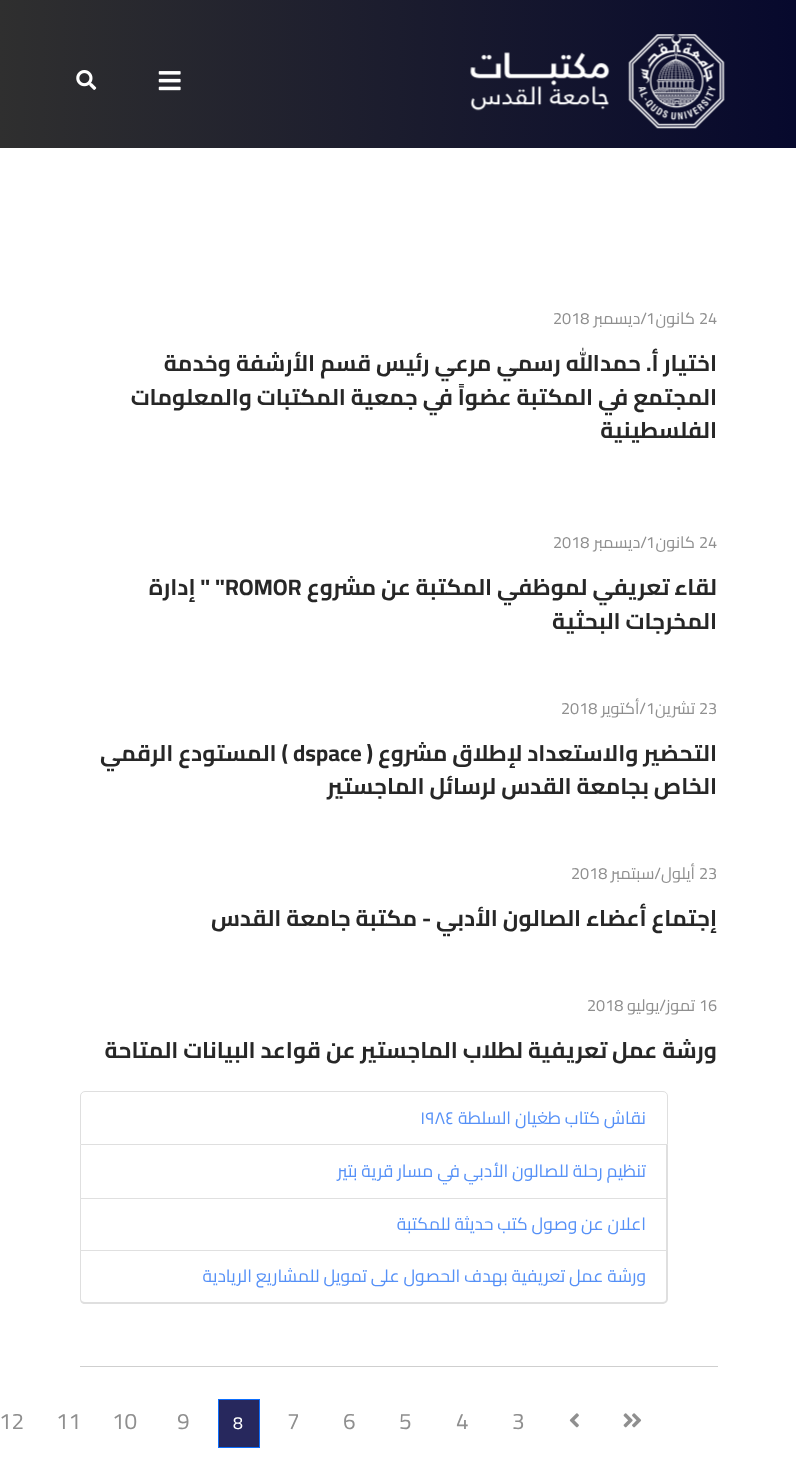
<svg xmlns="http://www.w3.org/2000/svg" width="796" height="1466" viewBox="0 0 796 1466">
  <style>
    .t1 { font: 16.25px Cairo; fill: #8f8f8f; }
    .t2 { font: 16.25px Cairo; direction: rtl; fill: #8f8f8f; }
    .t3 { font: bold 22.5px Cairo; direction: rtl; fill: #272727; }
    .t4 { font: bold 22.5px Cairo; fill: #272727; }
    .t5 { font: 17.5px Cairo; direction: rtl; fill: #5590f7; }
    .t6 { font: 17.5px Cairo; fill: #5590f7; }
    .t7 { font: 22.5px Cairo; fill: #8f8f8f; }
    .t8 { font: 17.5px Cairo; fill: #fff; }
  </style>
  <defs>
    <linearGradient id="g1" gradientUnits="userSpaceOnUse" x1="0" y1="74" x2="796" y2="74"><stop offset="0" stop-color="#2f2f2f"/><stop offset="1" stop-color="#07092d"/></linearGradient>
  </defs>
  <rect width="100%" height="100%" fill="#fff"/>
  <rect x="0" y="0" width="796" height="148" fill="url(#g1)"/>
  <image x="470" y="34" width="255" height="95" href="images/1.png"/>
  <image x="158" y="71" width="23" height="20" href="images/2.png"/>
  <image x="76" y="70" width="21" height="20" href="images/3.png"/>
  <text x="699" y="324" class="t1">24</text>
  <text x="695" y="324" class="t2">كانون</text>
  <text x="646" y="324" class="t1">1</text>
  <text x="647" y="324" class="t2">/ديسمبر</text>
  <text x="553" y="324" class="t1">2018</text>
  <text x="717" y="371" class="t3">اختيار أ. حمدالله رسمي مرعي رئيس قسم الأرشفة وخدمة</text>
  <text x="717" y="405" class="t3">المجتمع في المكتبة عضواً في جمعية المكتبات والمعلومات</text>
  <text x="717" y="438" class="t3">الفلسطينية</text>
  <text x="699" y="548" class="t1">24</text>
  <text x="695" y="548" class="t2">كانون</text>
  <text x="646" y="548" class="t1">1</text>
  <text x="647" y="548" class="t2">/ديسمبر</text>
  <text x="553" y="548" class="t1">2018</text>
  <text x="717" y="595" class="t3">لقاء تعريفي لموظفي المكتبة عن مشروع</text>
  <text x="225" y="595" class="t4">ROMOR</text>
  <text x="225" y="595" class="t3">" " إدارة</text>
  <text x="717" y="629" class="t3">المخرجات البحثية</text>
  <text x="699" y="714" class="t1">23</text>
  <text x="695" y="714" class="t2">تشرين</text>
  <text x="646" y="714" class="t1">1</text>
  <text x="646" y="714" class="t2">/أكتوير</text>
  <text x="561" y="714" class="t1">2018</text>
  <text x="717" y="761" class="t3">التحضير والاستعداد لإطلاق مشروع (</text>
  <text x="293" y="761" class="t4">dspace</text>
  <text x="288" y="761" class="t3">) المستودع الرقمي</text>
  <text x="717" y="794" class="t3">الخاص بجامعة القدس لرسائل الماجستير</text>
  <text x="699" y="879" class="t1">23</text>
  <text x="695" y="879" class="t2">أيلول/سبتمبر</text>
  <text x="571" y="879" class="t1">2018</text>
  <text x="717" y="926" class="t3">إجتماع أعضاء الصالون الأدبي - مكتبة جامعة القدس</text>
  <text x="699" y="1011" class="t1">16</text>
  <text x="695" y="1011" class="t2">تموز/يوليو</text>
  <text x="587" y="1011" class="t1">2018</text>
  <text x="717" y="1058" class="t3">ورشة عمل تعريفية لطلاب الماجستير عن قواعد البيانات المتاحة</text>
  <path d="M85 1091.5H663C665.5 1091.5 667.5 1093.5 667.5 1096V1144.5H80.5V1096C80.5 1093.5 82.5 1091.5 85 1091.5Z" fill="none" stroke="#dfdfdf"/>
  <text x="646" y="1124" class="t5">نقاش كتاب طغيان السلطة</text>
  <text x="420" y="1124" class="t6">١٩٨٤</text>
  <path d="M668 1145V1199L666 1198V1145Z" fill="#dfdfdf"/>
  <path d="M668 1199H80L81 1198H666Z" fill="#0000001f"/>
  <path d="M80 1199V1145H81V1198Z" fill="#0000001f"/>
  <text x="646" y="1177" class="t5">تنظيم رحلة للصالون الأدبي في مسار قرية بتير</text>
  <path d="M668 1199V1251L666 1250V1199Z" fill="#dfdfdf"/>
  <path d="M668 1251H80L81 1250H666Z" fill="#0000001f"/>
  <path d="M80 1251V1199H81V1250Z" fill="#0000001f"/>
  <text x="646" y="1230" class="t5">اعلان عن وصول كتب حديثة للمكتبة</text>
  <path d="M80 1251H668V1299C668 1302 665 1304 662 1304H85C82 1304 80 1302 80 1299ZM81 1251H666V1299C666 1301 665 1302 662 1302H85C83 1302 81 1301 81 1299Z" fill="#dfdfdf" fill-rule="evenodd"/>
  <text x="646" y="1282" class="t5">ورشة عمل تعريفية بهدف الحصول على تمويل للمشاريع الريادية</text>
  <rect x="80" y="1366" width="638" height="1" fill="#cfcfcf"/>
  <image x="623" y="1413" width="19" height="15" href="images/4.png"/>
  <image x="569" y="1413" width="10" height="15" href="images/5.png"/>
  <text x="512" y="1429" class="t7">3</text>
  <text x="456" y="1429" class="t7">4</text>
  <text x="399" y="1429" class="t7">5</text>
  <text x="343" y="1429" class="t7">6</text>
  <text x="287" y="1429" class="t7">7</text>
  <rect x="218.5" y="1399.5" width="41" height="48" fill="#27285d" stroke="#0d6efd"/>
  <text x="233" y="1429" class="t8">8</text>
  <text x="177" y="1429" class="t7">9</text>
  <text x="112" y="1429" class="t7">10</text>
  <text x="56" y="1429" class="t7">11</text>
  <text x="-1" y="1429" class="t7">12</text>
</svg>
